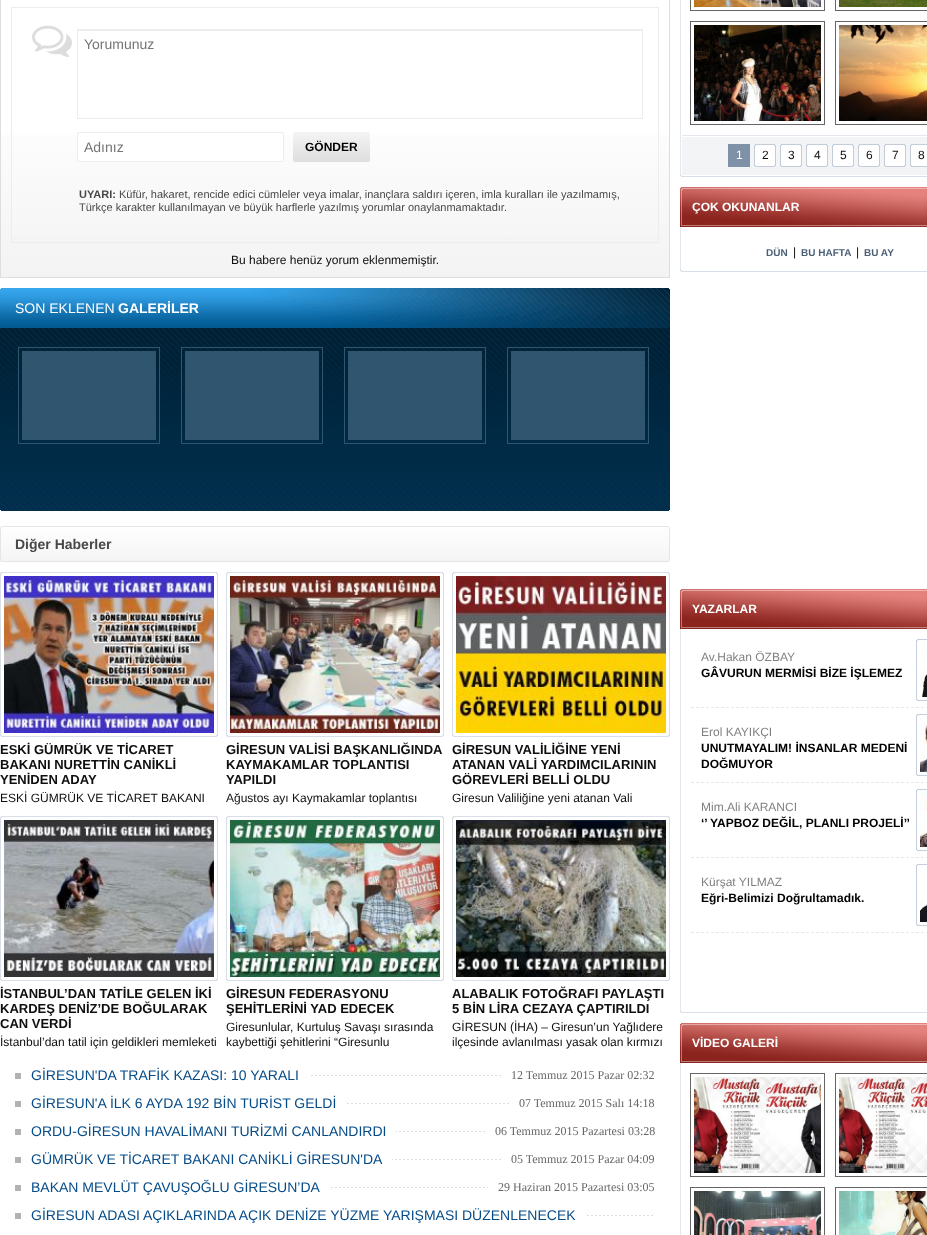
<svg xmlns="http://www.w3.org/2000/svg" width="927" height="1235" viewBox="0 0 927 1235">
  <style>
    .t1 { font: 14px Liberation Sans; fill: #757575; }
    .t2 { font: bold 12px Liberation Sans; fill: #000; }
    .t3 { font: bold 11px Liberation Sans; fill: #484848; }
    .t4 { font: 11px Liberation Sans; fill: #484848; }
    .t5 { font: 12px Liberation Sans; fill: #0f0f0f; }
    .t6 { font: 14px Liberation Sans; fill: #fff; }
    .t7 { font: bold 14px Liberation Sans; fill: #fff; }
    .t8 { font: bold 14px Liberation Sans; fill: #484848; }
    .t9 { font: bold 13px Liberation Sans; fill: #0f0f0f; }
    .t10 { font: 14px Liberation Sans; fill: #054b88; }
    .t11 { font: 12px Liberation Serif; fill: #666; }
    .t12 { font: 12px Liberation Sans; fill: #fff; }
    .t13 { font: bold 12px Liberation Sans; fill: #fff; }
    .t14 { font: bold 10px Liberation Sans; fill: #4a5f75; }
    .t15 { font: 12px Liberation Sans; fill: #818181; }
  </style>
  <defs>
    <linearGradient id="g1" gradientUnits="userSpaceOnUse" x1="335" y1="-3" x2="335" y2="277"><stop offset="0.36" stop-color="#fff"/><stop offset="1" stop-color="#f3f3f3"/></linearGradient>
    <linearGradient id="g2" gradientUnits="userSpaceOnUse" x1="335" y1="8" x2="335" y2="242"><stop offset="0.5" stop-color="#fff"/><stop offset="1" stop-color="#f3f3f3"/></linearGradient>
    <linearGradient id="g3" gradientUnits="userSpaceOnUse" x1="332" y1="132" x2="332" y2="162"><stop offset="0" stop-color="#f4f4f4"/><stop offset="1" stop-color="#dedede"/></linearGradient>
  </defs>
  <rect width="100%" height="100%" fill="#fff"/>
  <rect x="1" y="135" width="668" height="142" fill="url(#g1)"/>
  <rect x="0.5" y="-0.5" width="669" height="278" fill="none" stroke="#dedede"/>
  <rect x="12" y="237" width="646" height="3" fill="url(#g2)"/>
  <rect x="11.5" y="7.5" width="647" height="235" fill="none" stroke="#ededed"/>
  <image x="32" y="25" width="40" height="32" href="images/1.png"/>
  <rect x="78" y="30" width="564" height="1" fill="#ececec"/>
  <rect x="77.5" y="29.5" width="565" height="89" fill="none" stroke="#ededed"/>
  <text x="84" y="49" class="t1">Yorumunuz</text>
  <rect x="77.5" y="132.5" width="206" height="29" rx="1.5" fill="#fff" stroke="#ededed"/>
  <text x="84" y="152" class="t1">Adınız</text>
  <rect x="293" y="132" width="77" height="30" rx="2" fill="url(#g3)"/>
  <text x="305" y="151" class="t2">GÖNDER</text>
  <text x="79" y="198" class="t3">UYARI:</text>
  <text x="119" y="198" class="t4">Küfür, hakaret, rencide edici cümleler veya imalar, inançlara saldırı içeren, imla kuralları ile yazılmamış,</text>
  <text x="79" y="211" class="t4">Türkçe karakter kullanılmayan ve büyük harflerle yazılmış yorumlar onaylanmamaktadır.</text>
  <text x="231" y="264" class="t5">Bu habere henüz yorum eklenmemiştir.</text>
  <image x="0" y="288" width="670" height="223" href="images/2.png"/>
  <text x="15" y="313" class="t6">SON EKLENEN</text>
  <text x="118" y="313" class="t7">GALERİLER</text>
  <image x="0" y="526" width="670" height="36" href="images/3.png"/>
  <text x="15" y="549" class="t8">Diğer Haberler</text>
  <image x="0" y="572" width="218" height="165" href="images/4.png"/>
  <image x="4" y="576" width="210" height="157" href="images/5.png"/>
  <text x="0" y="754" class="t9">ESKİ GÜMRÜK VE TİCARET</text>
  <text x="0" y="769" class="t9">BAKANI NURETTİN CANİKLİ</text>
  <text x="0" y="784" class="t9">YENİDEN ADAY</text>
  <text x="0" y="802" class="t5">ESKİ GÜMRÜK VE TİCARET BAKANI</text>
  <image x="226" y="572" width="218" height="165" href="images/4.png"/>
  <image x="230" y="576" width="210" height="157" href="images/6.png"/>
  <text x="226" y="754" class="t9">GİRESUN VALİSİ BAŞKANLIĞINDA</text>
  <text x="226" y="769" class="t9">KAYMAKAMLAR TOPLANTISI</text>
  <text x="226" y="784" class="t9">YAPILDI</text>
  <text x="226" y="802" class="t5">Ağustos ayı Kaymakamlar toplantısı</text>
  <image x="452" y="572" width="218" height="165" href="images/4.png"/>
  <image x="456" y="576" width="210" height="157" href="images/7.png"/>
  <text x="452" y="754" class="t9">GİRESUN VALİLİĞİNE YENİ</text>
  <text x="452" y="769" class="t9">ATANAN VALİ YARDIMCILARININ</text>
  <text x="452" y="784" class="t9">GÖREVLERİ BELLİ OLDU</text>
  <text x="452" y="802" class="t5">Giresun Valiliğine yeni atanan Vali</text>
  <image x="0" y="816" width="218" height="165" href="images/4.png"/>
  <image x="4" y="820" width="210" height="157" href="images/8.png"/>
  <text x="0" y="998" class="t9">İSTANBUL’DAN TATİLE GELEN İKİ</text>
  <text x="0" y="1013" class="t9">KARDEŞ DENİZ’DE BOĞULARAK</text>
  <text x="0" y="1028" class="t9">CAN VERDİ</text>
  <text x="0" y="1046" class="t5">İstanbul’dan tatil için geldikleri memleketi</text>
  <image x="226" y="816" width="218" height="165" href="images/4.png"/>
  <image x="230" y="820" width="210" height="157" href="images/9.png"/>
  <text x="226" y="998" class="t9">GİRESUN FEDERASYONU</text>
  <text x="226" y="1013" class="t9">ŞEHİTLERİNİ YAD EDECEK</text>
  <text x="226" y="1031" class="t5">Giresunlular, Kurtuluş Savaşı sırasında</text>
  <text x="226" y="1046" class="t5">kaybettiği şehitlerini “Giresunlu</text>
  <image x="452" y="816" width="218" height="165" href="images/4.png"/>
  <image x="456" y="820" width="210" height="157" href="images/10.png"/>
  <text x="452" y="998" class="t9">ALABALIK FOTOĞRAFI PAYLAŞTI</text>
  <text x="452" y="1013" class="t9">5 BİN LİRA CEZAYA ÇAPTIRILDI</text>
  <text x="452" y="1031" class="t5">GİRESUN (İHA) – Giresun’un Yağlıdere</text>
  <text x="452" y="1046" class="t5">ilçesinde avlanılması yasak olan kırmızı</text>
  <image x="311" y="1075" width="190" height="1" href="images/11.png"/>
  <rect x="15" y="1073" width="6" height="6" fill="#b2b2b2"/>
  <text x="31" y="1080" class="t10">GİRESUN'DA TRAFİK KAZASI: 10 YARALI</text>
  <text x="511" y="1079" class="t11">12 Temmuz 2015 Pazar 02:32</text>
  <image x="347" y="1103" width="162" height="1" href="images/12.png"/>
  <rect x="15" y="1101" width="6" height="6" fill="#b2b2b2"/>
  <text x="31" y="1108" class="t10">GİRESUN'A İLK 6 AYDA 192 BİN TURİST GELDİ</text>
  <text x="519" y="1107" class="t11">07 Temmuz 2015 Salı 14:18</text>
  <image x="396" y="1131" width="89" height="1" href="images/13.png"/>
  <rect x="15" y="1129" width="6" height="6" fill="#b2b2b2"/>
  <text x="31" y="1136" class="t10">ORDU-GİRESUN HAVALİMANI TURİZMİ CANLANDIRDI</text>
  <text x="495" y="1135" class="t11">06 Temmuz 2015 Pazartesi 03:28</text>
  <image x="392" y="1159" width="109" height="1" href="images/14.png"/>
  <rect x="15" y="1157" width="6" height="6" fill="#b2b2b2"/>
  <text x="31" y="1164" class="t10">GÜMRÜK VE TİCARET BAKANI CANİKLİ GİRESUN'DA</text>
  <text x="511" y="1163" class="t11">05 Temmuz 2015 Pazar 04:09</text>
  <image x="331" y="1187" width="157" height="1" href="images/15.png"/>
  <rect x="15" y="1185" width="6" height="6" fill="#b2b2b2"/>
  <text x="31" y="1192" class="t10">BAKAN MEVLÜT ÇAVUŞOĞLU GİRESUN’DA</text>
  <text x="498" y="1191" class="t11">29 Haziran 2015 Pazartesi 03:05</text>
  <image x="587" y="1215" width="66" height="1" href="images/16.png"/>
  <rect x="15" y="1213" width="6" height="6" fill="#b2b2b2"/>
  <text x="31" y="1220" class="t10">GİRESUN ADASI AÇIKLARINDA AÇIK DENİZE YÜZME YARIŞMASI DÜZENLENECEK</text>
  <rect x="680" y="0" width="1" height="175" fill="#e2e8ed"/>
  <rect x="690.5" y="-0.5" width="134" height="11" fill="none" stroke="#656565"/>
  <image x="694" y="0" width="127" height="7" href="images/17.png"/>
  <rect x="835.5" y="-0.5" width="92" height="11" fill="none" stroke="#656565"/>
  <image x="839" y="0" width="88" height="7" href="images/18.png"/>
  <rect x="690.5" y="21.5" width="134" height="103" fill="none" stroke="#656565"/>
  <image x="694" y="25" width="127" height="96" href="images/19.png"/>
  <rect x="835.5" y="21.5" width="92" height="103" fill="none" stroke="#656565"/>
  <image x="839" y="25" width="88" height="96" href="images/20.png"/>
  <image x="682" y="135" width="245" height="40" href="images/21.png"/>
  <rect x="728" y="144" width="22" height="23" fill="#7f91a6"/>
  <text x="736" y="159" class="t12">1</text>
  <image x="754" y="144" width="22" height="23" href="images/22.png"/>
  <text x="762" y="159" class="t5">2</text>
  <image x="780" y="144" width="22" height="23" href="images/22.png"/>
  <text x="788" y="159" class="t5">3</text>
  <image x="806" y="144" width="22" height="23" href="images/22.png"/>
  <text x="814" y="159" class="t5">4</text>
  <image x="832" y="144" width="22" height="23" href="images/22.png"/>
  <text x="840" y="159" class="t5">5</text>
  <image x="858" y="144" width="22" height="23" href="images/22.png"/>
  <text x="866" y="159" class="t5">6</text>
  <image x="884" y="144" width="22" height="23" href="images/22.png"/>
  <text x="892" y="159" class="t5">7</text>
  <image x="910" y="144" width="17" height="23" href="images/23.png"/>
  <text x="918" y="159" class="t5">8</text>
  <image x="680" y="175" width="247" height="2" href="images/24.png"/>
  <image x="680" y="187" width="247" height="40" href="images/25.png"/>
  <text x="692" y="211" class="t13">ÇOK OKUNANLAR</text>
  <rect x="680" y="227" width="1" height="43" fill="#e2e8ed"/>
  <text x="766" y="256" class="t14">DÜN</text>
  <text x="793" y="256" class="t5">|</text>
  <text x="801" y="256" class="t14">BU HAFTA</text>
  <text x="856" y="256" class="t5">|</text>
  <text x="864" y="256" class="t14">BU AY</text>
  <image x="680" y="270" width="247" height="2" href="images/24.png"/>
  <image x="680" y="589" width="247" height="40" href="images/25.png"/>
  <text x="692" y="613" class="t13">YAZARLAR</text>
  <rect x="680" y="629" width="1" height="382" fill="#e2e8ed"/>
  <image x="691" y="639" width="236" height="69" href="images/26.png"/>
  <text x="701" y="661" class="t15">Av.Hakan ÖZBAY</text>
  <text x="701" y="677" class="t2">GÂVURUN MERMİSİ BİZE İŞLEMEZ</text>
  <image x="920" y="643" width="7" height="54" href="images/27.png"/>
  <image x="691" y="714" width="236" height="69" href="images/26.png"/>
  <text x="701" y="736" class="t15">Erol KAYIKÇI</text>
  <text x="701" y="752" class="t2">UNUTMAYALIM! İNSANLAR MEDENİ</text>
  <text x="701" y="768" class="t2">DOĞMUYOR</text>
  <image x="920" y="718" width="7" height="54" href="images/28.png"/>
  <image x="691" y="789" width="236" height="69" href="images/26.png"/>
  <text x="701" y="811" class="t15">Mim.Ali KARANCI</text>
  <text x="701" y="827" class="t2">‘’ YAPBOZ DEĞİL, PLANLI PROJELİ’’</text>
  <image x="920" y="793" width="7" height="54" href="images/29.png"/>
  <image x="691" y="864" width="236" height="69" href="images/26.png"/>
  <text x="701" y="886" class="t15">Kürşat YILMAZ</text>
  <text x="701" y="902" class="t2">Eğri-Belimizi Doğrultamadık.</text>
  <image x="920" y="900" width="7" height="22" href="images/30.png"/>
  <image x="680" y="1011" width="247" height="2" href="images/24.png"/>
  <image x="680" y="1023" width="247" height="40" href="images/25.png"/>
  <text x="692" y="1047" class="t13">VİDEO GALERİ</text>
  <rect x="680" y="1063" width="1" height="172" fill="#e2e8ed"/>
  <rect x="690.5" y="1073.5" width="134" height="103" fill="none" stroke="#656565"/>
  <image x="694" y="1077" width="127" height="96" href="images/31.png"/>
  <rect x="835.5" y="1073.5" width="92" height="103" fill="none" stroke="#656565"/>
  <image x="839" y="1077" width="88" height="96" href="images/32.png"/>
  <rect x="690.5" y="1187.5" width="134" height="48" fill="none" stroke="#656565"/>
  <image x="694" y="1191" width="127" height="44" href="images/33.png"/>
  <rect x="835.5" y="1187.5" width="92" height="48" fill="none" stroke="#656565"/>
  <image x="839" y="1191" width="88" height="44" href="images/34.png"/>
</svg>
